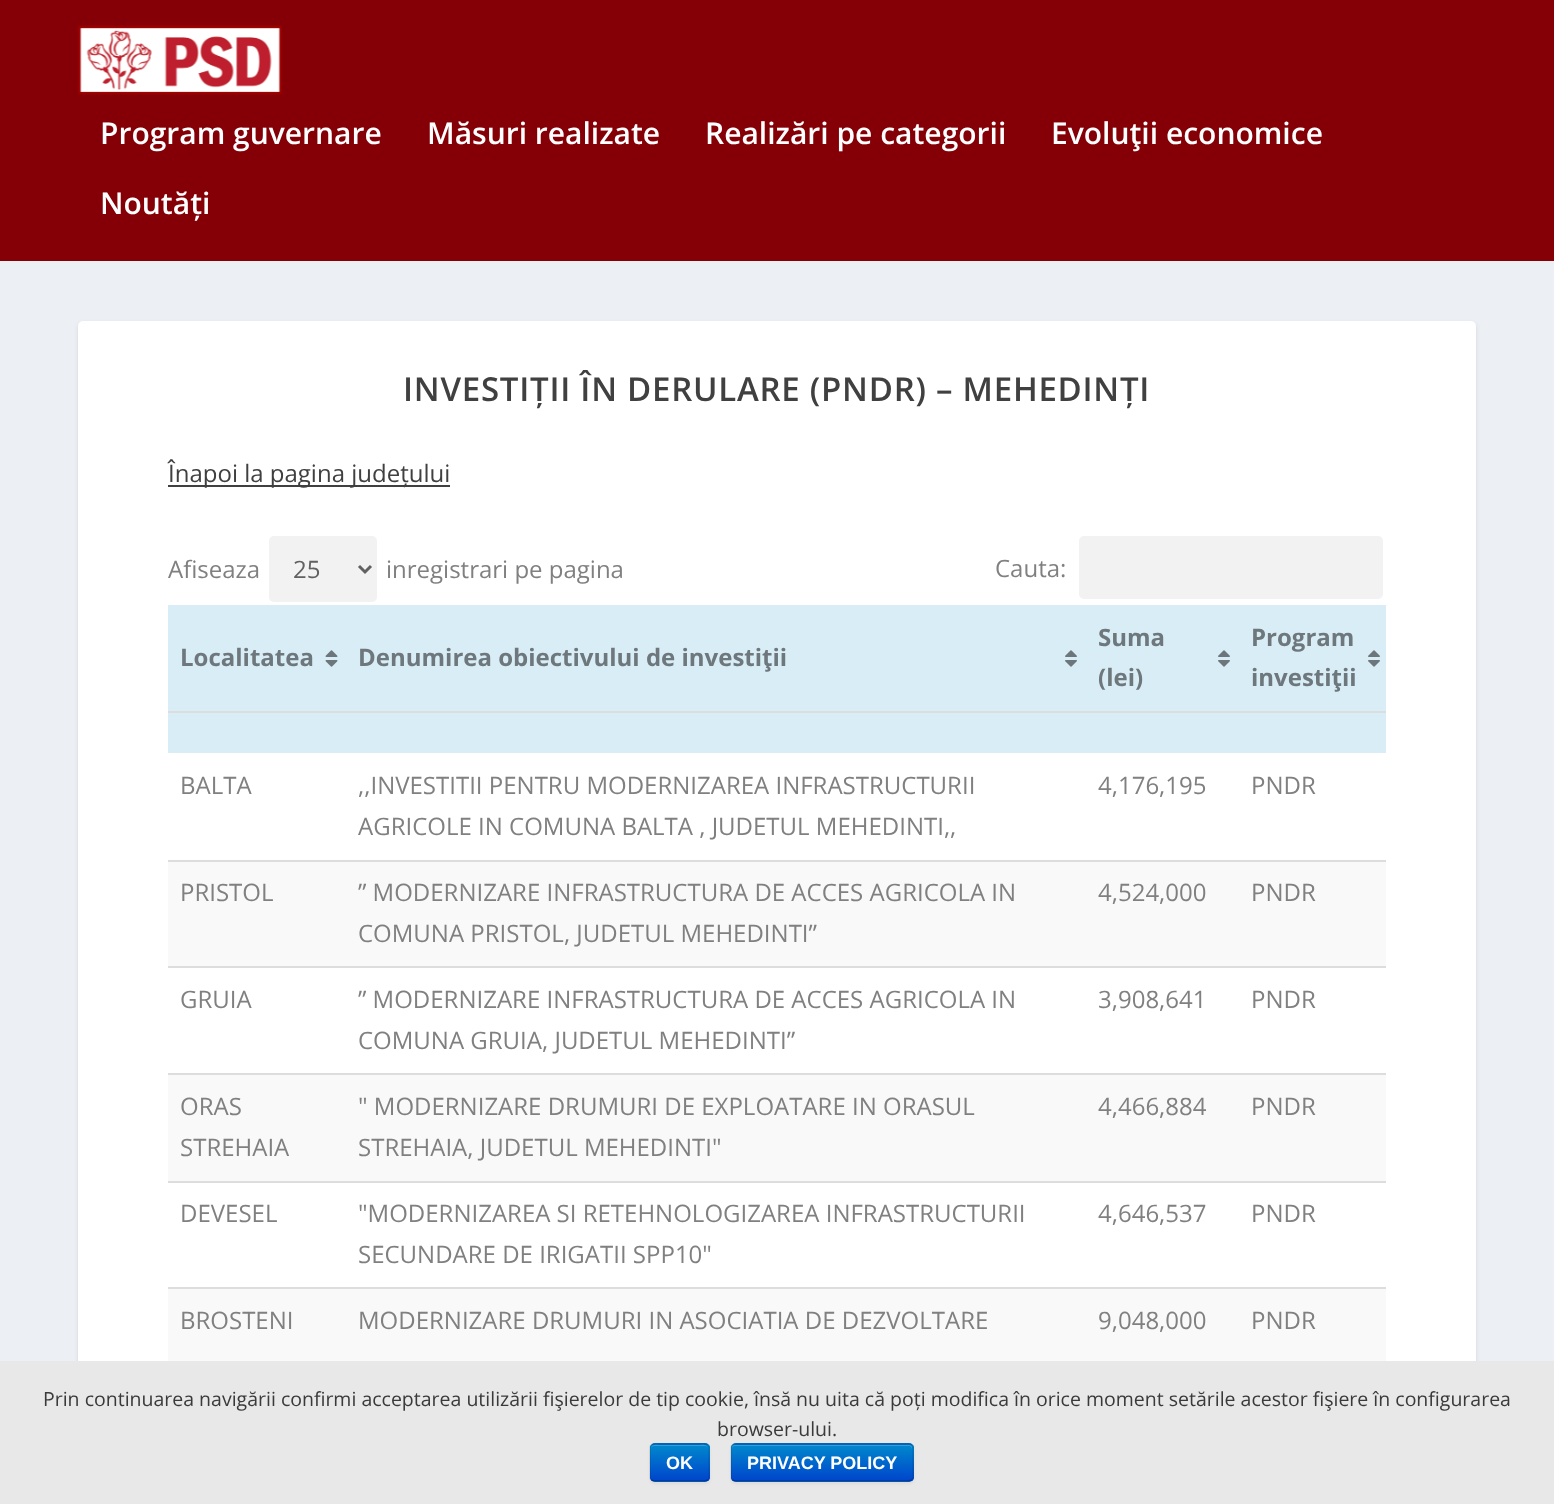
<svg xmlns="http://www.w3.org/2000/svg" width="1554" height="1504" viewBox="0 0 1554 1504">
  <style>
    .t1 { font: 600 30px Open Sans; fill: #fff; }
    .t2 { font: 600 33px Open Sans; letter-spacing: 0.75px; fill: #404040; }
    .t3 { font: 24px Open Sans; fill: #404040; }
    .t4 { font: 24px Open Sans; fill: #808080; }
    .t5 { font: 24px Open Sans; fill: #616161; }
    .t6 { font: bold 24px Open Sans; fill: #6d777c; }
    .t7 { font: 19.5px Open Sans; fill: #3a3a3a; }
    .t8 { font: bold 18px Liberation Sans; fill: #fff; }
  </style>
  <defs>
    <clipPath id="clip1"><rect x="650" y="1443" width="60" height="39" rx="5"/></clipPath>
    <linearGradient id="g1" gradientUnits="userSpaceOnUse" x1="680" y1="1445" x2="680" y2="1481"><stop offset="0" stop-color="#08c"/><stop offset="1" stop-color="#04c"/></linearGradient>
    <clipPath id="clip2"><rect x="731" y="1443" width="183" height="39" rx="5"/></clipPath>
    <linearGradient id="g2" gradientUnits="userSpaceOnUse" x1="822" y1="1445" x2="822" y2="1481"><stop offset="0" stop-color="#08c"/><stop offset="1" stop-color="#04c"/></linearGradient>
  </defs>
  <rect width="100%" height="100%" fill="#ecf0f5"/>
  <rect x="0" y="0" width="1554" height="261" fill="#840006"/>
  <image x="77" y="25" width="206" height="70" href="images/1.png"/>
  <text x="100" y="144" class="t1">Program guvernare</text>
  <text x="427" y="144" class="t1">Măsuri realizate</text>
  <text x="705" y="144" class="t1">Realizări pe categorii</text>
  <text x="1051" y="144" class="t1">Evoluţii economice</text>
  <text x="100" y="214" class="t1">Noutăți</text>
  <rect x="78" y="323" width="1398" height="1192" rx="5" fill="#0000001a" filter="blur(2px)"/>
  <rect x="78" y="321" width="1398" height="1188" rx="5" fill="#fff"/>
  <text x="403" y="401" class="t2">INVESTIȚII ÎN DERULARE (PNDR) – MEHEDINȚI</text>
  <rect x="168" y="485" width="282" height="2" fill="#404040"/>
  <text x="168" y="482" class="t3">Înapoi la pagina județului</text>
  <text x="168" y="578" class="t4">Afiseaza</text>
  <rect x="269" y="536" width="108" height="66" rx="5" fill="#f2f2f2"/>
  <path d="M359 566L365 572L371 566" fill="none" stroke="#616161" stroke-width="3"/>
  <text x="293" y="578" class="t5">25</text>
  <text x="386" y="578" class="t4">inregistrari pe pagina</text>
  <text x="995" y="577" class="t4">Cauta:</text>
  <rect x="1079" y="536" width="304" height="63" rx="5" fill="#f2f2f2"/>
  <rect x="168" y="605" width="1218" height="106" fill="#d9edf7"/>
  <text x="180" y="666" class="t6">Localitatea</text>
  <image x="325" y="650" width="13" height="17" href="images/2.png"/>
  <text x="358" y="666" class="t6">Denumirea obiectivului de investiţii</text>
  <image x="1065" y="650" width="12" height="17" href="images/3.png"/>
  <text x="1098" y="646" class="t6">Suma</text>
  <image x="1218" y="650" width="12" height="17" href="images/3.png"/>
  <text x="1098" y="686" class="t6">(lei)</text>
  <rect x="168" y="711" width="1218" height="2" fill="#ddd"/>
  <text x="1251" y="646" class="t6">Program</text>
  <image x="1368" y="650" width="12" height="17" href="images/3.png"/>
  <text x="1251" y="686" class="t6">investiţii</text>
  <rect x="168" y="713" width="1218" height="40" fill="#d9edf7"/>
  <text x="180" y="794" class="t4">BALTA</text>
  <text x="358" y="794" class="t4">,,INVESTITII PENTRU MODERNIZAREA INFRASTRUCTURII</text>
  <text x="358" y="835" class="t4">AGRICOLE IN COMUNA BALTA , JUDETUL MEHEDINTI,,</text>
  <text x="1098" y="794" class="t4">4,176,195</text>
  <text x="1251" y="794" class="t4">PNDR</text>
  <rect x="168" y="862" width="1218" height="104" fill="#f9f9f9"/>
  <text x="180" y="901" class="t4">PRISTOL</text>
  <text x="358" y="901" class="t4">” MODERNIZARE INFRASTRUCTURA DE ACCES AGRICOLA IN</text>
  <text x="358" y="942" class="t4">COMUNA PRISTOL, JUDETUL MEHEDINTI”</text>
  <text x="1098" y="901" class="t4">4,524,000</text>
  <rect x="168" y="860" width="1218" height="2" fill="#ddd"/>
  <text x="1251" y="901" class="t4">PNDR</text>
  <text x="180" y="1008" class="t4">GRUIA</text>
  <text x="358" y="1008" class="t4">” MODERNIZARE INFRASTRUCTURA DE ACCES AGRICOLA IN</text>
  <text x="358" y="1049" class="t4">COMUNA GRUIA, JUDETUL MEHEDINTI”</text>
  <text x="1098" y="1008" class="t4">3,908,641</text>
  <rect x="168" y="966" width="1218" height="2" fill="#ddd"/>
  <text x="1251" y="1008" class="t4">PNDR</text>
  <rect x="168" y="1075" width="1218" height="106" fill="#f9f9f9"/>
  <text x="180" y="1115" class="t4">ORAS</text>
  <text x="180" y="1156" class="t4">STREHAIA</text>
  <text x="358" y="1115" class="t4">" MODERNIZARE DRUMURI DE EXPLOATARE IN ORASUL</text>
  <text x="358" y="1156" class="t4">STREHAIA, JUDETUL MEHEDINTI"</text>
  <text x="1098" y="1115" class="t4">4,466,884</text>
  <rect x="168" y="1073" width="1218" height="2" fill="#ddd"/>
  <text x="1251" y="1115" class="t4">PNDR</text>
  <text x="180" y="1222" class="t4">DEVESEL</text>
  <text x="358" y="1222" class="t4">"MODERNIZAREA SI RETEHNOLOGIZAREA INFRASTRUCTURII</text>
  <text x="358" y="1263" class="t4">SECUNDARE DE IRIGATII SPP10"</text>
  <text x="1098" y="1222" class="t4">4,646,537</text>
  <rect x="168" y="1181" width="1218" height="2" fill="#ddd"/>
  <text x="1251" y="1222" class="t4">PNDR</text>
  <rect x="168" y="1289" width="1218" height="72" fill="#f9f9f9"/>
  <text x="180" y="1329" class="t4">BROSTENI</text>
  <text x="358" y="1329" class="t4">MODERNIZARE DRUMURI IN ASOCIATIA DE DEZVOLTARE</text>
  <text x="1098" y="1329" class="t4">9,048,000</text>
  <rect x="168" y="1287" width="1218" height="2" fill="#ddd"/>
  <text x="1251" y="1329" class="t4">PNDR</text>
  <rect x="0" y="1361" width="1554" height="143" fill="#e8e8e8"/>
  <text x="43" y="1406" class="t7">Prin continuarea navigării confirmi acceptarea utilizării fişierelor de tip cookie, însă nu uita că poți modifica în orice moment setările acestor fişiere în configurarea</text>
  <text x="717" y="1436" class="t7">browser-ului.</text>
  <rect x="650" y="1445" width="60" height="39" rx="5" fill="#0000000d" filter="blur(1.5px)"/>
  <rect x="650" y="1443" width="60" height="39" rx="5" fill="#006dcc"/>
  <g clip-path="url(#clip1)">
    <rect x="650" y="1445" width="60" height="36" fill="url(#g1)"/>
  </g>
  <path d="M654 1446H705C707 1446 708 1447 708 1449C708 1443 701 1445 696 1445H662C658 1445 651 1443 651 1449C651 1447 652 1446 654 1446Z" fill="#339fd6"/>
  <path d="M707.5 1480L705.5 1481H653.5L651.5 1480" fill="none" stroke="#00000040" stroke-width="1.5"/>
  <path d="M651.5 1480C650.5 1479.5 650 1478.5 650 1477.5V1447.5C650 1446.5 650.5 1445.5 651.5 1445C652 1444 653 1444 654 1444H705C706 1444 707 1444 707.5 1445C708.5 1445.5 709 1446.5 709 1447.5V1477.5C709 1478.5 708.5 1479.5 707.5 1480" fill="none" stroke="#0000001a" stroke-width="1.5"/>
  <text x="666" y="1469" class="t8">OK</text>
  <rect x="731" y="1445" width="183" height="39" rx="5" fill="#0000000d" filter="blur(1.5px)"/>
  <rect x="731" y="1443" width="183" height="39" rx="5" fill="#006dcc"/>
  <g clip-path="url(#clip2)">
    <rect x="731" y="1445" width="183" height="36" fill="url(#g2)"/>
  </g>
  <path d="M735 1446H910L911 1447L912 1449V1448C912 1446 911 1445 909 1445H735C733 1445 732 1446 732 1448V1449C732 1447 733 1446 735 1446Z" fill="#ffffff33"/>
  <path d="M911.5 1480L909 1481H734.5L732.5 1480" fill="none" stroke="#00000040" stroke-width="1.5"/>
  <path d="M732.5 1480C731.5 1479.5 731 1478.5 731 1477.5V1447.5C731 1446.5 731.5 1445.5 732.5 1445C733 1444 734 1444 735 1444H909C910 1444 911 1444 911.5 1445C912.5 1445.5 913 1446.5 913 1447.5V1477.5C913 1478.5 912.5 1479.5 911.5 1480" fill="none" stroke="#0000001a" stroke-width="1.5"/>
  <text x="747" y="1469" class="t8">PRIVACY POLICY</text>
</svg>
